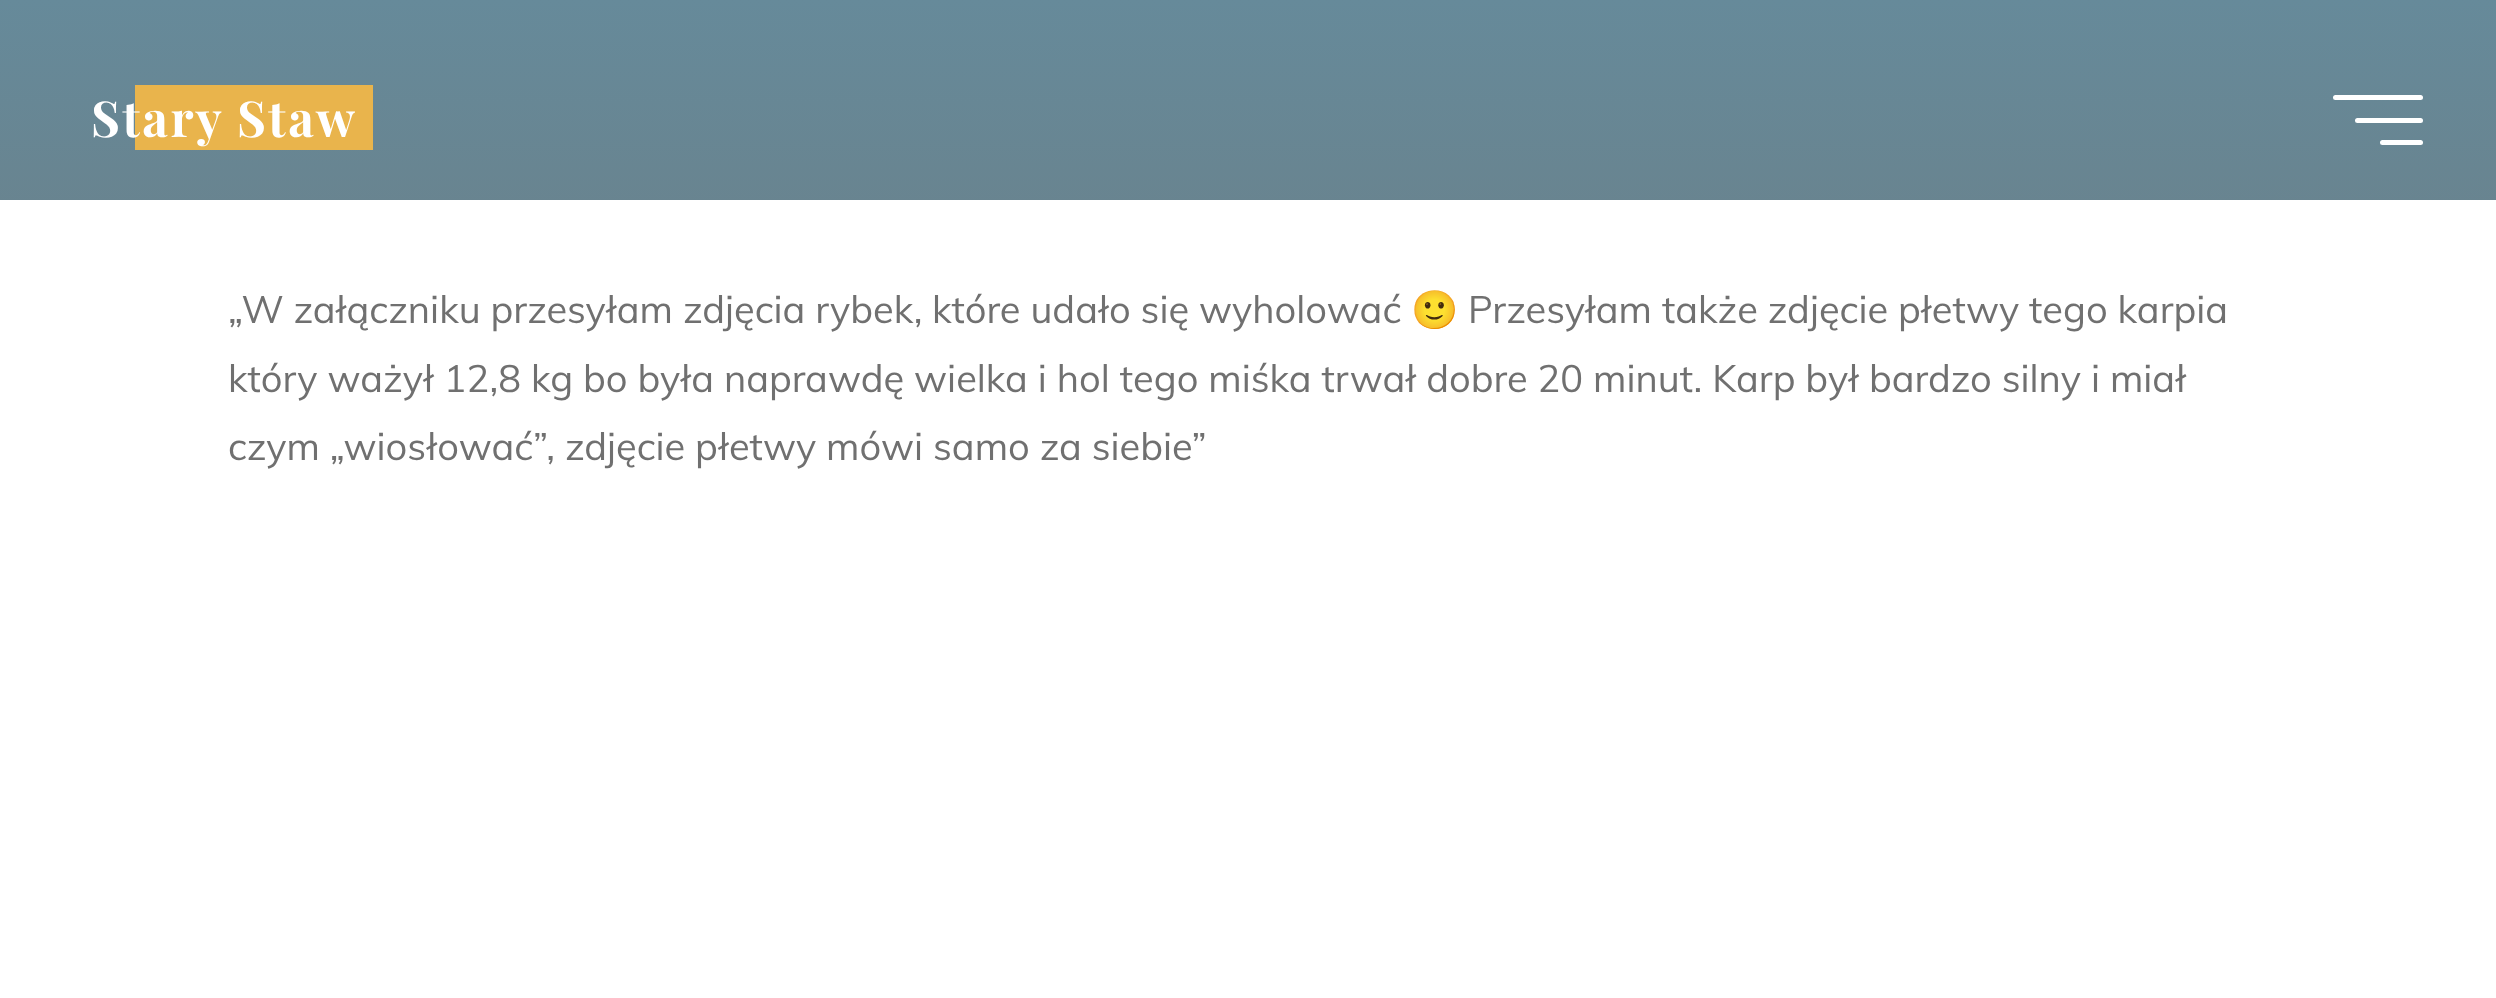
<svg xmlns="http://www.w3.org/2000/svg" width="2496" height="998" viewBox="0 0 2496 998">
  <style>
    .t1 { font: bold 49.5px Playfair Display; letter-spacing: 2.5px; fill: #fff; }
    .t2 { font: 38px Muli; fill: #707070; }
    .t3 { font: 38px Noto Color Emoji; fill: #707070; }
  </style>
  <defs>
    <linearGradient id="g1" gradientUnits="userSpaceOnUse" x1="1249" y1="0" x2="1249" y2="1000"><stop offset="0" stop-color="#668a9a"/><stop offset="1" stop-color="#726d69"/></linearGradient>
  </defs>
  <rect width="100%" height="100%" fill="#fff"/>
  <rect x="0" y="0" width="2496" height="200" fill="url(#g1)"/>
  <rect x="135" y="85" width="238" height="65" fill="#e9b44c"/>
  <text x="91" y="137" class="t1">Stary Staw</text>
  <rect x="2333" y="95" width="90" height="5" rx="2.5" fill="#fff"/>
  <rect x="2355" y="118" width="68" height="5" rx="2.5" fill="#fff"/>
  <rect x="2380" y="140" width="43" height="5" rx="2.5" fill="#fff"/>
  <text x="228" y="323" class="t2">„W załączniku przesyłam zdjęcia rybek,</text>
  <text x="932" y="323" class="t2">które udało się wyholować</text>
  <text x="1411" y="323" class="t3">🙂</text>
  <text x="1468" y="323" class="t2">Przesyłam także zdjęcie płetwy tego karpia</text>
  <text x="228" y="392" class="t2">który ważył 12,8 kg bo była naprawdę wielka i hol tego miśka trwał dobre 20 minut. Karp był bardzo silny i miał</text>
  <text x="228" y="460" class="t2">czym „wiosłować”, zdjęcie płetwy mówi samo za siebie”</text>
</svg>
